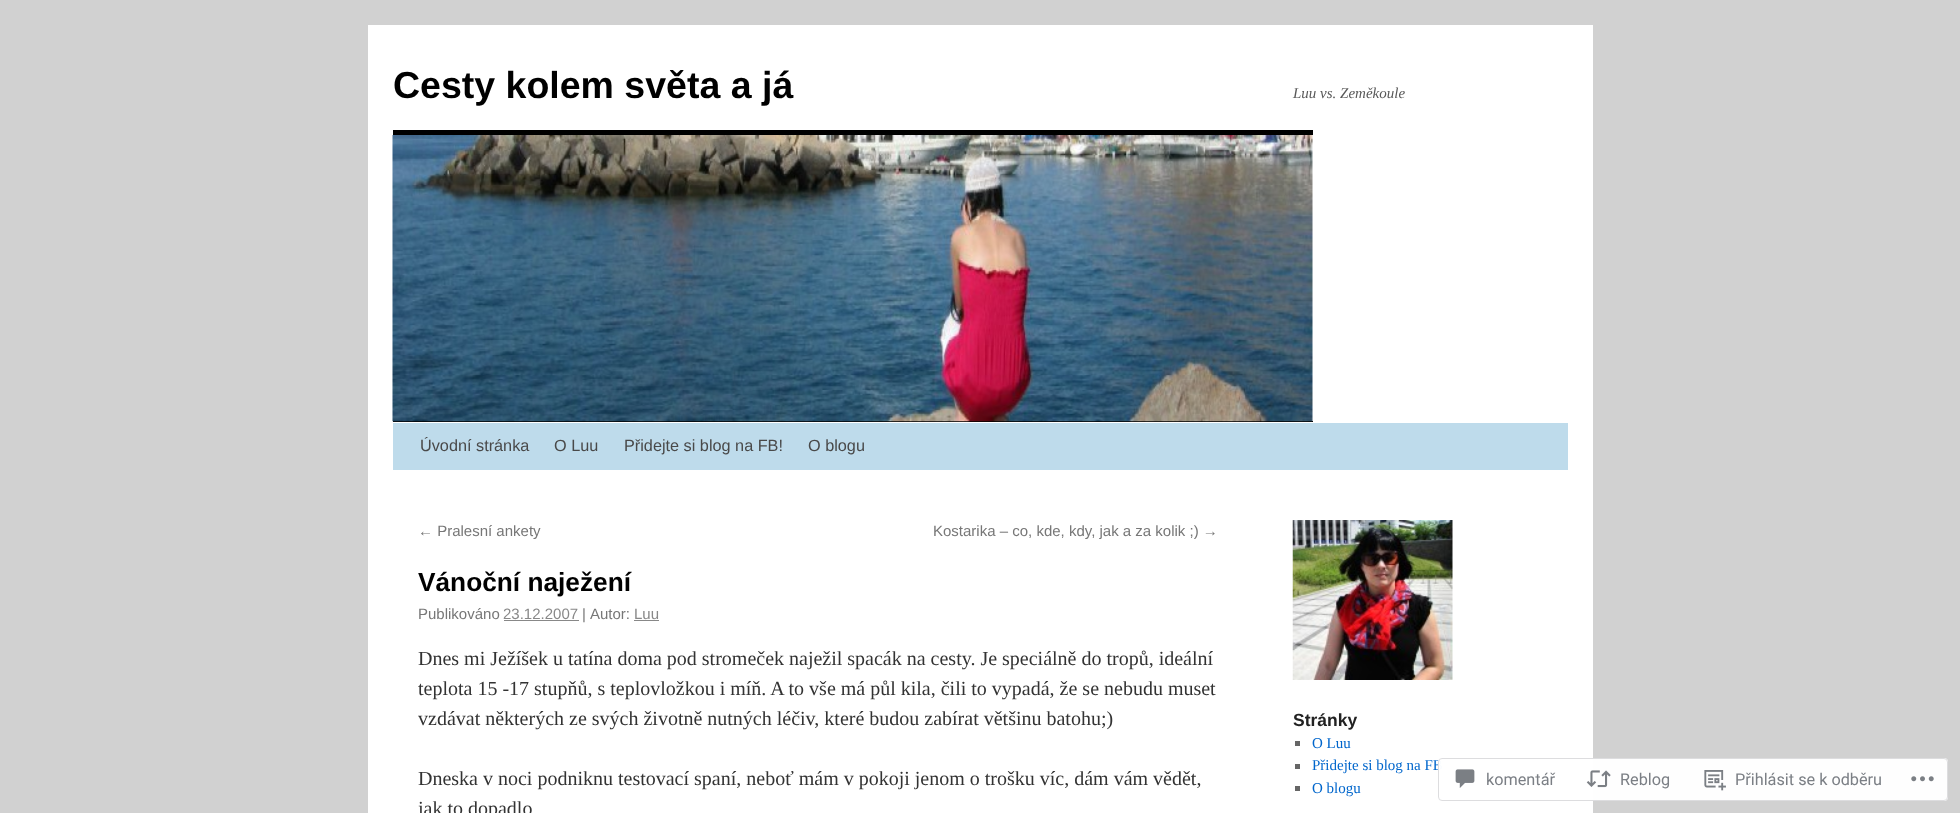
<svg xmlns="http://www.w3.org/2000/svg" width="1960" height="813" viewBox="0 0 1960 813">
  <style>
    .t1 { font: bold 37.5px Liberation Sans; fill: #000; }
    .t2 { font: italic 15px Liberation Serif; fill: #595959; }
    .t3 { font: 16.25px Liberation Sans; fill: #494949; }
    .t4 { font: 15px Liberation Sans; fill: #777; }
    .t5 { font: bold 26.25px Liberation Sans; fill: #000; }
    .t6 { font: 15px Liberation Sans; fill: #888; }
    .t7 { font: 20px Liberation Serif; fill: #333; }
    .t8 { font: bold 17.5px Liberation Sans; fill: #222; }
    .t9 { font: 15px Liberation Serif; fill: #06c; }
    .t10 { font: 16.25px Roboto; fill: #7b7f85; }
  </style>
  <rect width="100%" height="100%" fill="#d1d1d1"/>
  <rect x="368" y="25" width="1225" height="788" fill="#fff"/>
  <text x="393" y="98" class="t1">Cesty kolem světa a já</text>
  <text x="1293" y="98" class="t2">Luu vs. Zeměkoule</text>
  <rect x="393" y="130" width="920" height="5" fill="#000"/>
  <rect x="393" y="421" width="920" height="1" fill="#000"/>
  <image x="392" y="135" width="921" height="287" href="images/1.png"/>
  <rect x="393" y="423" width="1175" height="47" fill="#bedbeb"/>
  <text x="420" y="451" class="t3">Úvodní stránka</text>
  <text x="554" y="451" class="t3">O Luu</text>
  <text x="624" y="451" class="t3">Přidejte si blog na FB!</text>
  <text x="808" y="451" class="t3">O blogu</text>
  <text x="418" y="536" class="t4">← Pralesní ankety</text>
  <text x="933" y="536" class="t4">Kostarika – co, kde, kdy, jak a za kolik ;) →</text>
  <text x="418" y="591" class="t5">Vánoční naježení</text>
  <text x="418" y="619" class="t4">Publikováno</text>
  <text x="503" y="619" class="t6">23.12.2007</text>
  <rect x="504" y="620" width="75" height="1" fill="#888"/>
  <text x="582" y="619" class="t4">|</text>
  <text x="590" y="619" class="t4">Autor:</text>
  <text x="634" y="619" class="t6">Luu</text>
  <rect x="634" y="620" width="25" height="1" fill="#888"/>
  <text x="418" y="665" class="t7">Dnes mi Ježíšek u tatína doma pod stromeček naježil spacák na cesty. Je speciálně do tropů, ideální</text>
  <text x="418" y="695" class="t7">teplota 15 -17 stupňů, s teplovložkou i míň. A to vše má půl kila, čili to vypadá, že se nebudu muset</text>
  <text x="418" y="725" class="t7">vzdávat některých ze svých životně nutných léčiv, které budou zabírat většinu batohu;)</text>
  <text x="418" y="785" class="t7">Dneska v noci podniknu testovací spaní, neboť mám v pokoji jenom o trošku víc, dám vám vědět,</text>
  <text x="418" y="815" class="t7">jak to dopadlo</text>
  <image x="1292" y="520" width="161" height="160" href="images/2.png"/>
  <text x="1293" y="726" class="t8">Stránky</text>
  <rect x="1295" y="741" width="5" height="5" fill="#666"/>
  <text x="1312" y="748" class="t9">O Luu</text>
  <rect x="1295" y="764" width="5" height="5" fill="#666"/>
  <text x="1312" y="770" class="t9">Přidejte si blog na FB</text>
  <rect x="1295" y="786" width="5" height="5" fill="#666"/>
  <text x="1312" y="793" class="t9">O blogu</text>
  <rect x="1438" y="758" width="510" height="43" rx="4" fill="#fffffffa"/>
  <rect x="1438.5" y="758.5" width="509" height="42" rx="3.5" fill="none" stroke="#dcdcdefa"/>
  <image x="1455" y="769" width="20" height="19" href="images/3.png"/>
  <text x="1486" y="785" class="t10">komentář</text>
  <image x="1586" y="770" width="25" height="18" href="images/4.png"/>
  <text x="1620" y="785" class="t10">Reblog</text>
  <image x="1704" y="770" width="22" height="21" href="images/5.png"/>
  <text x="1735" y="785" class="t10">Přihlásit se k odběru</text>
  <image x="1911" y="776" width="23" height="6" href="images/6.png"/>
</svg>
